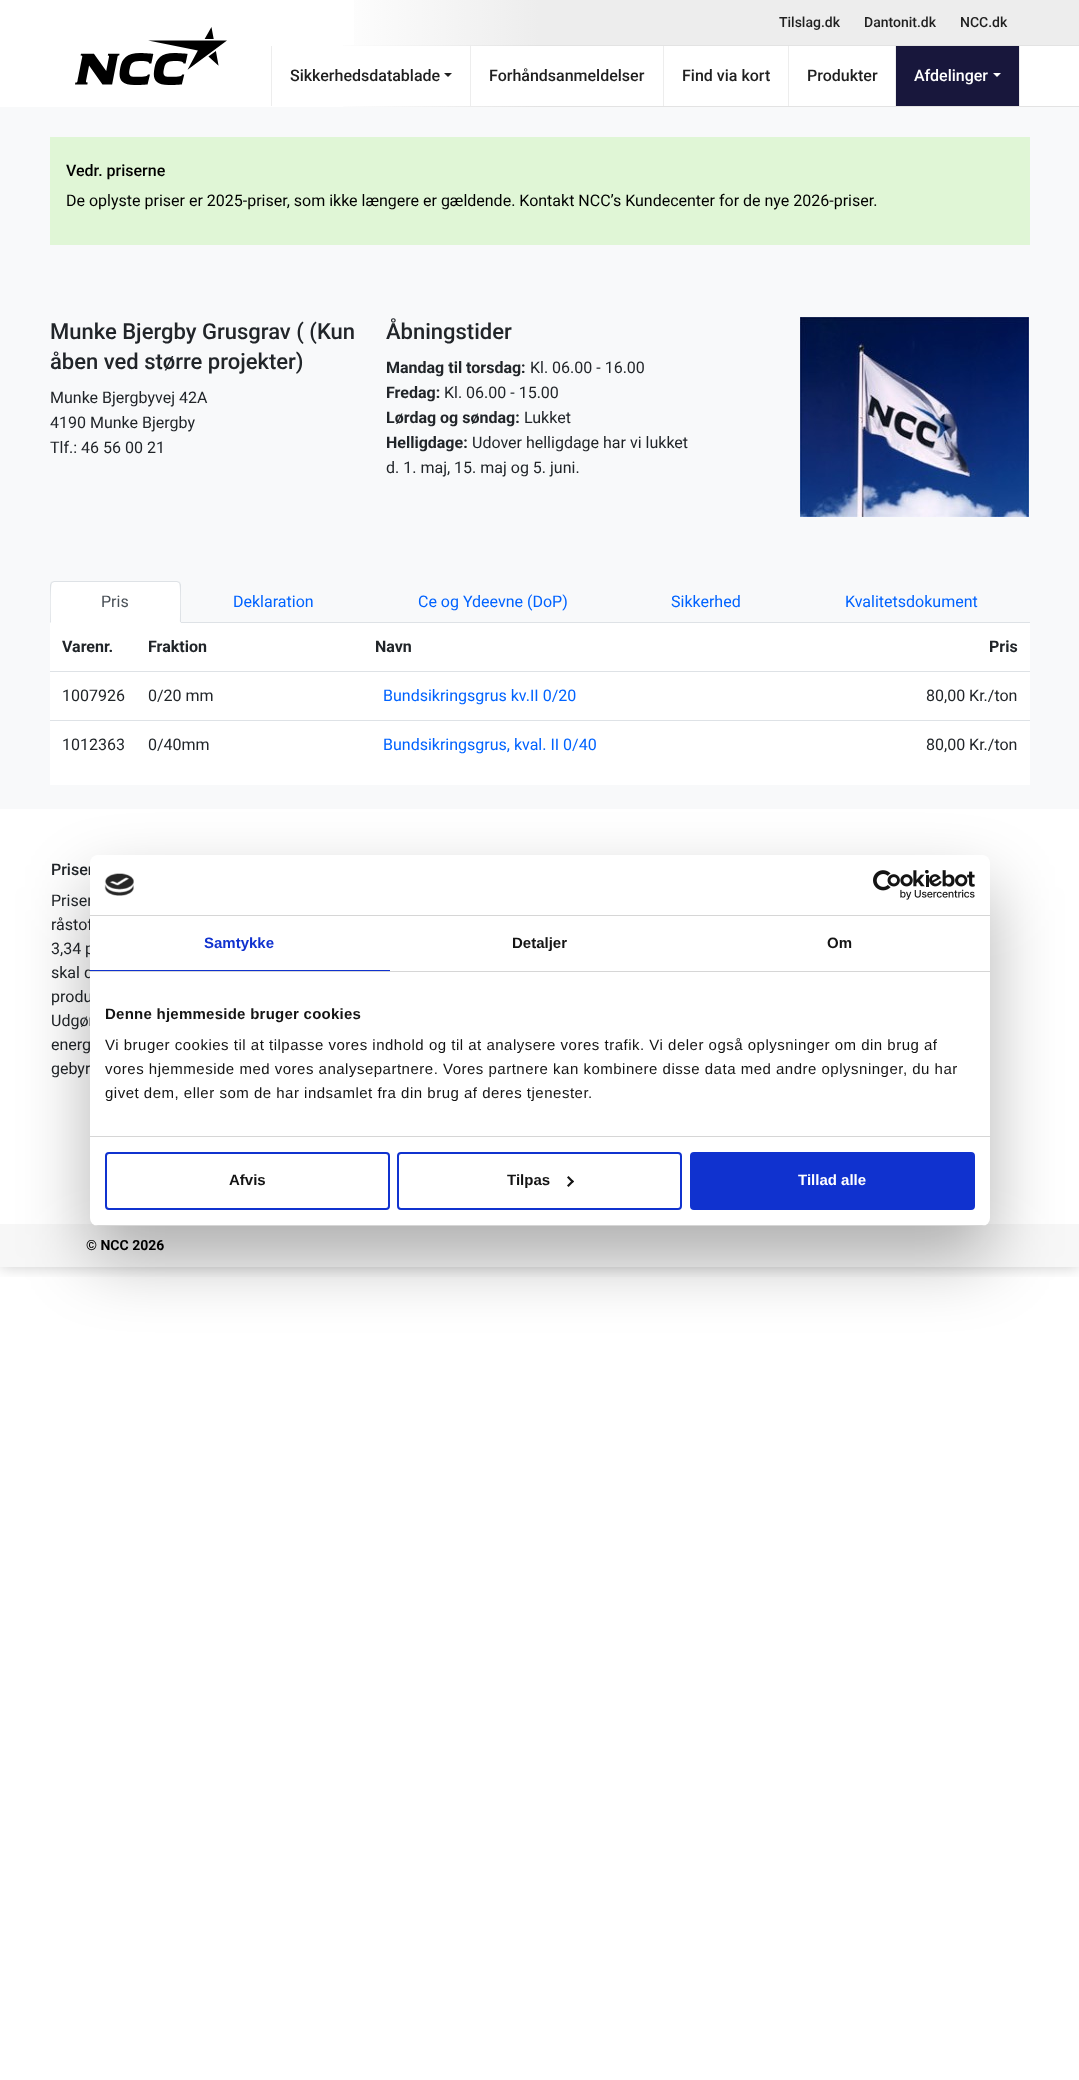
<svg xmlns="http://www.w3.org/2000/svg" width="1079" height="2080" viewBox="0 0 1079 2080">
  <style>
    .t1 { font: 500 14px Roboto; fill: #1f1f1f; }
    .t2 { font: 500 16px Roboto; fill: #1f1f1f; }
    .t3 { font: 500 16px Roboto; fill: #fff; }
    .t4 { font: 500 16px Roboto; fill: #000; }
    .t5 { font: 16px Roboto; fill: #000; }
    .t6 { font: 500 22px Roboto; fill: #212529; }
    .t7 { font: 16px Roboto; fill: #212529; }
    .t8 { font: bold 16px Roboto; fill: #212529; }
    .t9 { font: 16px Roboto; fill: #495057; }
    .t10 { font: 16px Roboto; fill: #0063ff; }
    .t11 { font: 500 16px Roboto; fill: #212529; }
    .t12 { font: bold 15px Liberation Sans; fill: #1032cf; }
    .t13 { font: bold 15px Liberation Sans; fill: #141414; }
    .t14 { font: bold 15px Liberation Sans; letter-spacing: 0.25px; fill: #141414; }
    .t15 { font: 15px Liberation Sans; letter-spacing: 0.5px; fill: #141414; }
    .t16 { font: bold 15px Liberation Sans; fill: #fff; }
    .t17 { font: bold 14px Roboto; fill: #000; }
  </style>
  <defs>
    <clipPath id="clip1"><rect x="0" y="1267" width="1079" height="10"/></clipPath>
    <linearGradient id="g1" gradientUnits="userSpaceOnUse" x1="0" y1="23" x2="1079" y2="22"><stop offset="0.3" stop-color="#fff"/><stop offset="0.5" stop-color="#ededed"/></linearGradient>
    <linearGradient id="g2" gradientUnits="userSpaceOnUse" x1="0" y1="46" x2="1079" y2="45"><stop offset="0" stop-color="#fff"/><stop offset="0.3" stop-color="#fff"/><stop offset="0.5" stop-color="#e3e3e3"/><stop offset="1" stop-color="#e3e3e3"/></linearGradient>
    <linearGradient id="g3" gradientUnits="userSpaceOnUse" x1="0" y1="107" x2="1079" y2="106"><stop offset="0" stop-color="#fff"/><stop offset="0.3" stop-color="#fff"/><stop offset="0.5" stop-color="#e3e3e3"/><stop offset="1" stop-color="#e3e3e3"/></linearGradient>
    <clipPath id="clip2"><rect x="90" y="855" width="900" height="371" rx="8"/></clipPath>
  </defs>
  <rect width="100%" height="100%" fill="#fff"/>
  <g clip-path="url(#clip1)">
    <rect x="0" y="0" width="1079" height="1267" fill="#00000033" filter="blur(7.5px)"/>
  </g>
  <rect x="354" y="0" width="725" height="45" fill="url(#g1)"/>
  <text x="779" y="27" class="t1">Tilslag.dk</text>
  <text x="864" y="27" class="t1">Dantonit.dk</text>
  <text x="960" y="27" class="t1">NCC.dk</text>
  <image x="75" y="27" width="152" height="58" href="images/1.png"/>
  <rect x="343" y="45" width="736" height="1" fill="url(#g2)"/>
  <rect x="470" y="46" width="1" height="60" fill="#ededed"/>
  <rect x="271" y="46" width="1" height="60" fill="#ededed"/>
  <text x="290" y="81" class="t2">Sikkerhedsdatablade</text>
  <path d="M444 73H452L448 77Z" fill="#212121"/>
  <rect x="663" y="46" width="1" height="60" fill="#ededed"/>
  <text x="489" y="81" class="t2">Forhåndsanmeldelser</text>
  <rect x="788" y="46" width="1" height="60" fill="#ededed"/>
  <text x="682" y="81" class="t2">Find via kort</text>
  <rect x="895" y="46" width="1" height="60" fill="#ededed"/>
  <text x="807" y="81" class="t2">Produkter</text>
  <rect x="1019" y="46" width="1" height="60" fill="#ededed"/>
  <rect x="896" y="46" width="123" height="60" fill="#18173c"/>
  <text x="914" y="81" class="t3">Afdelinger</text>
  <path d="M993 73H1001L997 77Z" fill="#fff"/>
  <rect x="343" y="106" width="736" height="1" fill="url(#g3)"/>
  <rect x="0" y="107" width="1079" height="702" fill="#f8f9fa"/>
  <rect x="50" y="137" width="980" height="108" fill="#e0f6d6"/>
  <text x="66" y="176" class="t4">Vedr. priserne</text>
  <text x="66" y="206" class="t5">De oplyste priser er 2025-priser, som ikke længere er gældende. Kontakt NCC’s Kundecenter for de nye 2026-priser.</text>
  <text x="50" y="339" class="t6">Munke Bjergby Grusgrav ( (Kun</text>
  <text x="50" y="369" class="t6">åben ved større projekter)</text>
  <text x="50" y="403" class="t7">Munke Bjergbyvej 42A</text>
  <text x="50" y="428" class="t7">4190 Munke Bjergby</text>
  <text x="50" y="453" class="t7">Tlf.: 46 56 00 21</text>
  <text x="386" y="339" class="t6">Åbningstider</text>
  <text x="386" y="373" class="t8">Mandag til torsdag:</text>
  <text x="530" y="373" class="t7">Kl. 06.00 - 16.00</text>
  <text x="386" y="398" class="t8">Fredag:</text>
  <text x="444" y="398" class="t7">Kl. 06.00 - 15.00</text>
  <text x="386" y="423" class="t8">Lørdag og søndag:</text>
  <text x="524" y="423" class="t7">Lukket</text>
  <text x="386" y="448" class="t8">Helligdage:</text>
  <text x="472" y="448" class="t7">Udover helligdage har vi lukket</text>
  <text x="386" y="473" class="t7">d. 1. maj, 15. maj og 5. juni.</text>
  <image x="800" y="317" width="229" height="200" href="images/2.png"/>
  <rect x="181" y="622" width="849" height="1" fill="#dee2e6"/>
  <path d="M54 581H177C179 581 181 583 181 585V623H50V585C50 583 52 581 54 581Z" fill="#fff"/>
  <path d="M54 581L51 582L52 583L54 582H177L179 583L180 582L177 581Z" fill="#dee2e6"/>
  <path d="M181 623V585C181 584 180 583 180 582L179 583C181 585 180 617 180 622Z" fill="#dee2e6"/>
  <path d="M181 623L180 622H51L50 623Z" fill="#fff"/>
  <path d="M50 623L51 622C51 617 50 585 52 583L51 582L50 585Z" fill="#dee2e6"/>
  <text x="101" y="607" class="t9">Pris</text>
  <text x="233" y="607" class="t10">Deklaration</text>
  <text x="418" y="607" class="t10">Ce og Ydeevne (DoP)</text>
  <text x="671" y="607" class="t10">Sikkerhed</text>
  <text x="845" y="607" class="t10">Kvalitetsdokument</text>
  <rect x="50" y="623" width="980" height="162" fill="#fff"/>
  <text x="62" y="652" class="t8">Varenr.</text>
  <text x="148" y="652" class="t8">Fraktion</text>
  <text x="375" y="652" class="t8">Navn</text>
  <text x="989" y="652" class="t8">Pris</text>
  <text x="62" y="701" class="t7">1007926</text>
  <text x="148" y="701" class="t7">0/20 mm</text>
  <text x="383" y="701" class="t10">Bundsikringsgrus kv.II 0/20</text>
  <rect x="50" y="671" width="980" height="1" fill="#dee2e6"/>
  <text x="926" y="701" class="t7">80,00 Kr./ton</text>
  <text x="62" y="750" class="t7">1012363</text>
  <text x="148" y="750" class="t7">0/40mm</text>
  <text x="383" y="750" class="t10">Bundsikringsgrus, kval. II 0/40</text>
  <rect x="50" y="720" width="980" height="1" fill="#dee2e6"/>
  <text x="926" y="750" class="t7">80,00 Kr./ton</text>
  <text x="51" y="875" class="t11">Priser</text>
  <text x="51" y="906" class="t7">Priser</text>
  <text x="51" y="930" class="t7">råstof</text>
  <text x="51" y="954" class="t7">3,34 p</text>
  <text x="51" y="978" class="t7">skal d</text>
  <text x="51" y="1002" class="t7">produ</text>
  <text x="51" y="1026" class="t7">Udgør</text>
  <text x="51" y="1050" class="t7">energ</text>
  <text x="51" y="1074" class="t7">gebyr</text>
  <rect x="0" y="1224" width="1079" height="43" fill="#f7f7f7"/>
  <rect x="90" y="887" width="900" height="371" rx="8" fill="#0000004d" filter="blur(34px)"/>
  <rect x="90" y="855" width="900" height="371" rx="8" fill="#fff"/>
  <rect x="90" y="915" width="900" height="1" fill="#d6d6d6"/>
  <image x="104" y="873" width="30" height="23" href="images/3.png"/>
  <image x="873" y="870" width="102" height="30" href="images/4.png"/>
  <rect x="90" y="971" width="900" height="1" fill="#d6d6d6"/>
  <rect x="90" y="970" width="300" height="1" fill="#1032cf"/>
  <text x="204" y="948" class="t12">Samtykke</text>
  <text x="512" y="948" class="t13">Detaljer</text>
  <text x="827" y="948" class="t13">Om</text>
  <rect x="90" y="1136" width="900" height="1" fill="#d6d6d6"/>
  <text x="105" y="1019" class="t14">Denne hjemmeside bruger cookies</text>
  <text x="105" y="1050" class="t15">Vi bruger cookies til at tilpasse vores indhold og til at analysere vores trafik. Vi deler også oplysninger om din brug af</text>
  <text x="105" y="1074" class="t15">vores hjemmeside med vores analysepartnere. Vores partnere kan kombinere disse data med andre oplysninger, du har</text>
  <text x="105" y="1098" class="t15">givet dem, eller som de har indsamlet fra din brug af deres tjenester.</text>
  <g clip-path="url(#clip2)">
    <rect x="90" y="1225" width="900" height="1" fill="#d6d6d6"/>
  </g>
  <rect x="106" y="1153" width="283" height="56" rx="3" fill="none" stroke="#1032cf" stroke-width="2"/>
  <text x="229" y="1185" class="t13">Afvis</text>
  <rect x="398" y="1153" width="283" height="56" rx="3" fill="none" stroke="#1032cf" stroke-width="2"/>
  <text x="507" y="1185" class="t13">Tilpas</text>
  <path d="M568.5 1176L574 1181.5L572.5 1183L567 1177.5Z" fill="#141414"/>
  <path d="M572.5 1180L574 1181.5L568.5 1187L567 1185.5Z" fill="#141414"/>
  <rect x="691" y="1153" width="283" height="56" rx="3" fill="#1032cf" stroke="#1032cf" stroke-width="2"/>
  <text x="798" y="1185" class="t16">Tillad alle</text>
  <text x="86" y="1250" class="t17">© NCC 2026</text>
</svg>
